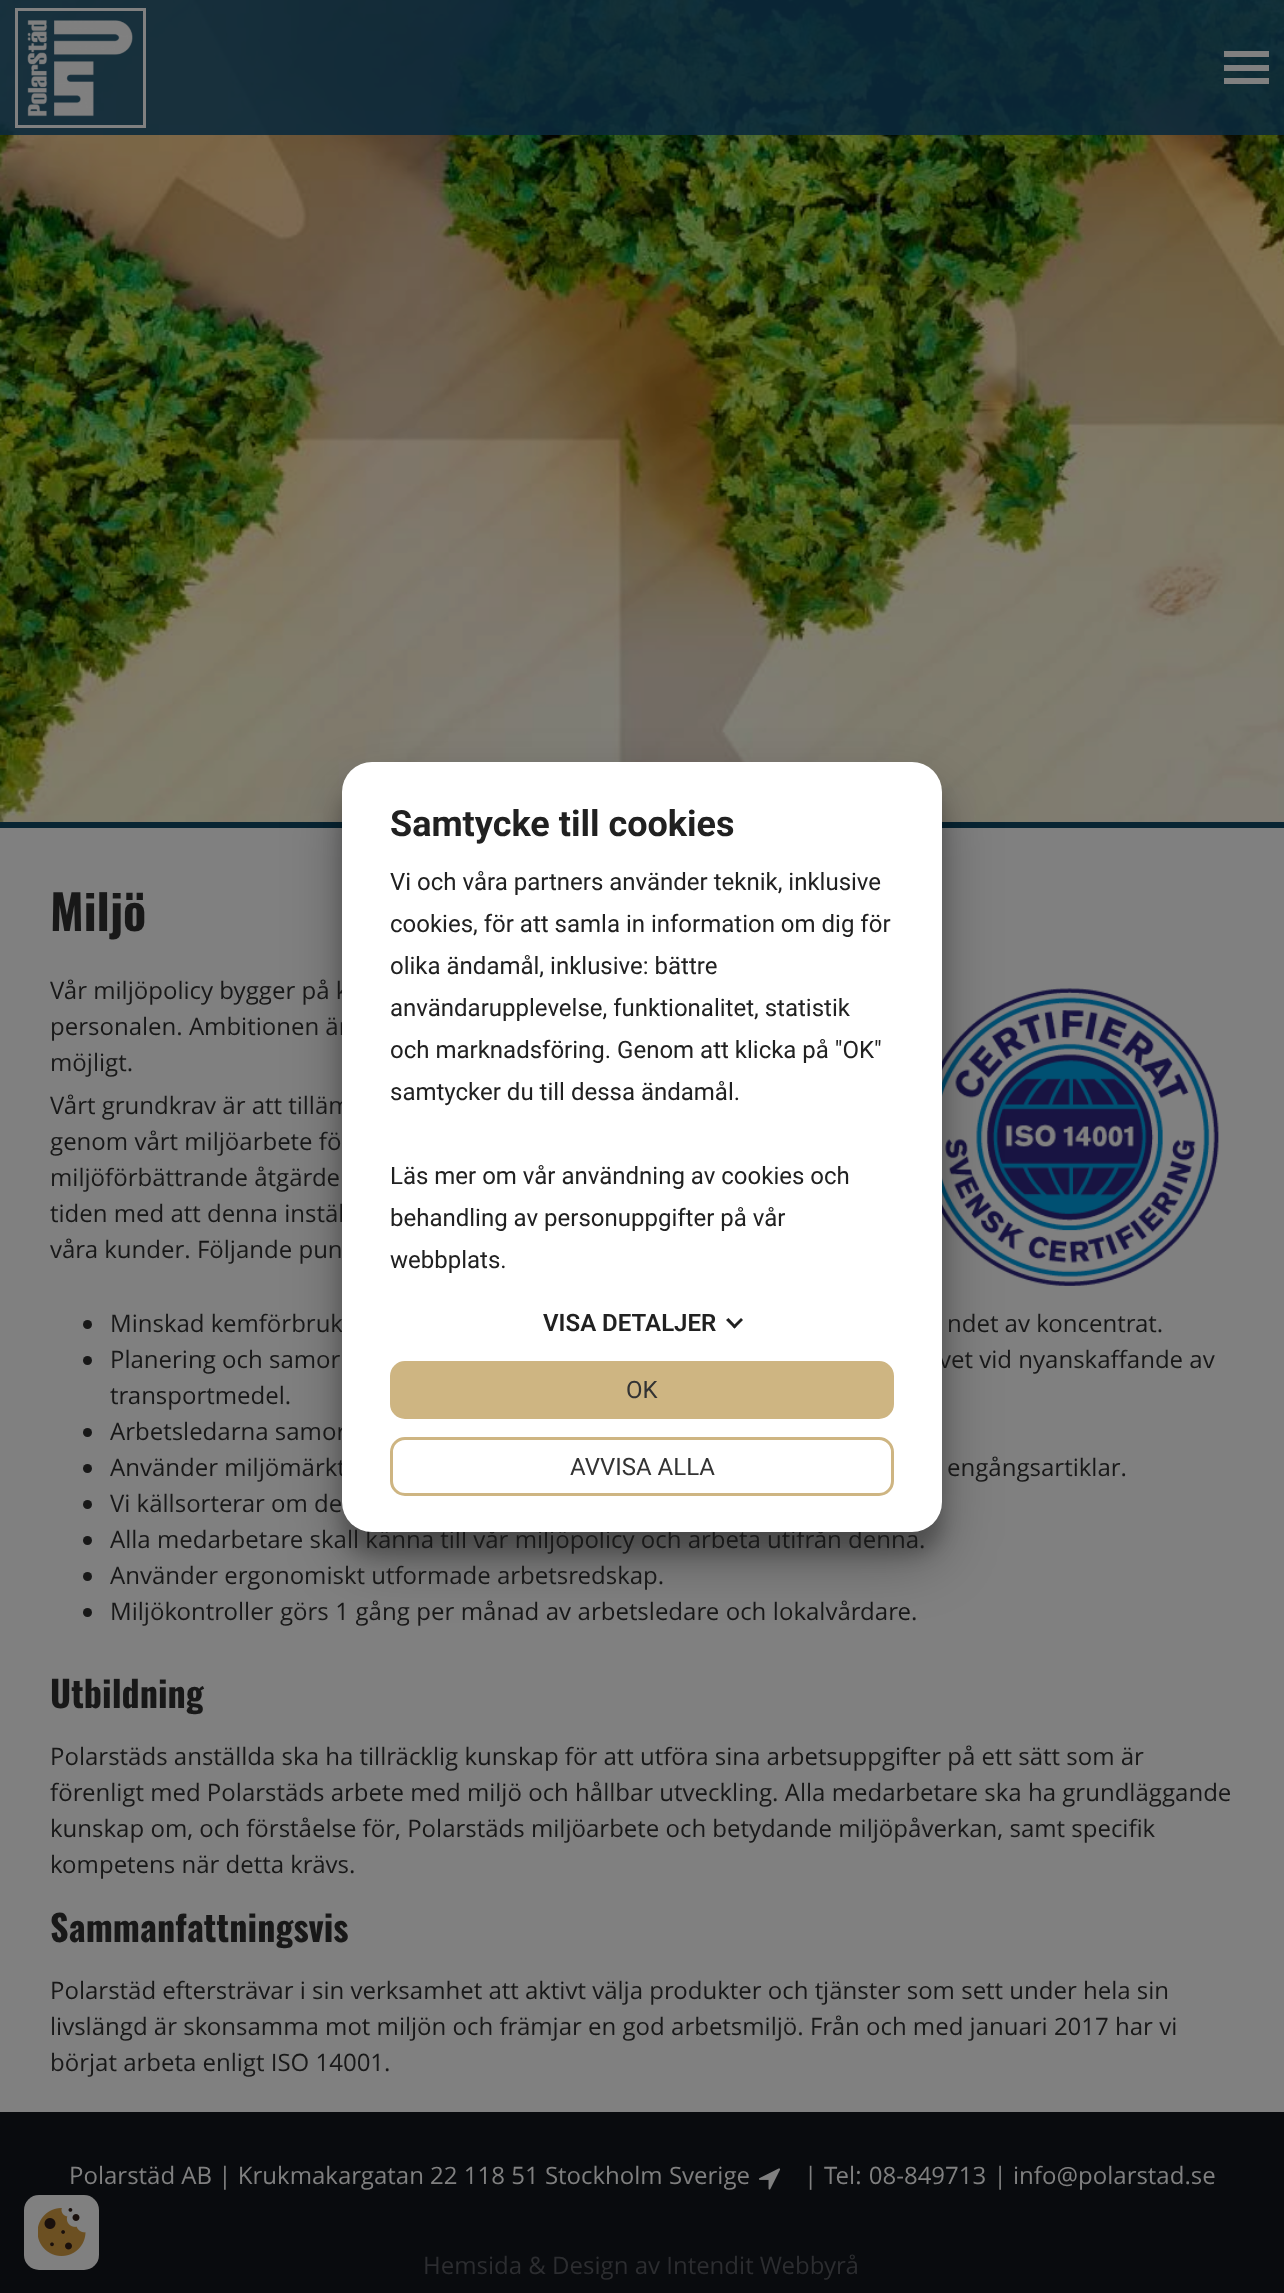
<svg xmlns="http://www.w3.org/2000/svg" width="1284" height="2293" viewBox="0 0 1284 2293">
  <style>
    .t1 { font: 24px Open Sans; fill: #181818; }
    .t2 { font: bold 36px Roboto; fill: #212121; }
    .t3 { font: 24px Roboto; fill: #212121; }
    .t4 { font: 600 24px Roboto; fill: #212121; }
    .t5 { font: 24px Roboto; fill: #333; }
    .t6 { font: bold 48px Oswald; fill: #181818; }
    .t7 { font: bold 36px Oswald; fill: #181818; }
    .t8 { font: 24px Open Sans; fill: #808080; }
    .t9 { font: 24px Open Sans; fill: #2c2d30; }
  </style>
  <rect width="100%" height="100%" fill="#808080"/>
  <image x="0" y="0" width="1284" height="822" href="images/2.png"/>
  <rect x="0" y="0" width="1284" height="135" fill="#0b2a3be3"/>
  <rect x="16.5" y="9.5" width="128" height="117" fill="none" stroke="#808080" stroke-width="3"/>
  <image x="27" y="20" width="106" height="97" href="images/1.png"/>
  <rect x="1224" y="51" width="45" height="6" fill="#808080"/>
  <rect x="1224" y="65" width="45" height="6" fill="#808080"/>
  <rect x="1224" y="78" width="45" height="6" fill="#808080"/>
  <rect x="0" y="822" width="1284" height="6" fill="#082533"/>
  <image x="942" y="988" width="277" height="298" href="images/3.png"/>
  <rect x="342" y="785" width="600" height="769" rx="30" fill="#00000038" filter="blur(9px)"/>
  <rect x="342" y="791" width="600" height="769" rx="30" fill="#0000004d" filter="blur(28.5px)"/>
  <text x="50" y="999" class="t1">Vår miljöpolicy bygger på k</text>
  <text x="50" y="1035" class="t1">personalen. Ambitionen är</text>
  <text x="50" y="1114" class="t1">Vårt grundkrav är att tilläm</text>
  <text x="50" y="1222" class="t1">tiden med att denna instäl</text>
  <text x="110" y="1332" class="t1">Minskad kemförbruk</text>
  <text x="939" y="1368" class="t1">vet vid nyanskaffande av</text>
  <text x="110" y="1440" class="t1">Arbetsledarna samor</text>
  <text x="110" y="1476" class="t1">Använder miljömärkt</text>
  <text x="110" y="1548" class="t1">Alla medarbetare skall känna till vår miljöpolicy och arbeta utifrån denna.</text>
  <rect x="342" y="762" width="600" height="770" rx="30" fill="#fff"/>
  <text x="390" y="836" class="t2">Samtycke till cookies</text>
  <text x="390" y="890" class="t3">Vi och våra partners använder teknik, inklusive</text>
  <text x="390" y="932" class="t3">cookies, för att samla in information om dig för</text>
  <text x="390" y="974" class="t3">olika ändamål, inklusive: bättre</text>
  <text x="390" y="1016" class="t3">användarupplevelse, funktionalitet, statistik</text>
  <text x="390" y="1058" class="t3">och marknadsföring. Genom att klicka på "OK"</text>
  <text x="390" y="1100" class="t3">samtycker du till dessa ändamål.</text>
  <text x="390" y="1184" class="t3">Läs mer om vår användning av cookies och</text>
  <text x="390" y="1226" class="t3">behandling av personuppgifter på vår</text>
  <text x="390" y="1268" class="t3">webbplats.</text>
  <text x="543" y="1331" class="t4">VISA DETALJER</text>
  <path d="M741 1318L743 1320L734.5 1328.5L732.5 1326.5Z" fill="#212121"/>
  <path d="M728.5 1318L736.5 1326.5L734.5 1328.5L726 1320Z" fill="#212121"/>
  <rect x="391.5" y="1362.5" width="501" height="55" rx="13.5" fill="#ceb582" stroke="#ceb582" stroke-width="3"/>
  <text x="626" y="1398" class="t5">OK</text>
  <rect x="391.5" y="1438.5" width="501" height="56" rx="13.5" fill="none" stroke="#ceb582" stroke-width="3"/>
  <text x="570" y="1475" class="t5">AVVISA ALLA</text>
  <text x="50" y="931" class="t6">Miljö</text>
  <text x="50" y="1071" class="t1">möjligt.</text>
  <text x="50" y="1150" class="t1">genom vårt miljöarbete fö</text>
  <text x="50" y="1186" class="t1">miljöförbättrande åtgärde</text>
  <text x="50" y="1258" class="t1">våra kunder. Följande pun</text>
  <circle cx="87.5" cy="1324.5" r="4.5" fill="#181818"/>
  <text x="947" y="1332" class="t1">ndet av koncentrat.</text>
  <circle cx="87.5" cy="1360.5" r="4.5" fill="#181818"/>
  <text x="110" y="1368" class="t1">Planering och samor</text>
  <text x="110" y="1404" class="t1">transportmedel.</text>
  <circle cx="87.5" cy="1432.5" r="4.5" fill="#181818"/>
  <circle cx="87.5" cy="1468.5" r="4.5" fill="#181818"/>
  <text x="947" y="1476" class="t1">engångsartiklar.</text>
  <circle cx="87.5" cy="1504.5" r="4.5" fill="#181818"/>
  <text x="110" y="1512" class="t1">Vi källsorterar om de</text>
  <circle cx="87.5" cy="1540.5" r="4.5" fill="#181818"/>
  <circle cx="87.5" cy="1576.5" r="4.5" fill="#181818"/>
  <text x="110" y="1584" class="t1">Använder ergonomiskt utformade arbetsredskap.</text>
  <circle cx="87.5" cy="1612.5" r="4.5" fill="#181818"/>
  <text x="110" y="1620" word-spacing="0.25" class="t1">Miljökontroller görs 1 gång per månad av arbetsledare och lokalvårdare.</text>
  <text x="50" y="1708" class="t7">Utbildning</text>
  <text x="50" y="1765" class="t1">Polarstäds anställda ska ha tillräcklig kunskap för att utföra sina arbetsuppgifter på ett sätt som är</text>
  <text x="50" y="1801" class="t1">förenligt med Polarstäds arbete med miljö och hållbar utveckling. Alla medarbetare ska ha grundläggande</text>
  <text x="50" y="1837" class="t1">kunskap om, och förståelse för, Polarstäds miljöarbete och betydande miljöpåverkan, samt specifik</text>
  <text x="50" y="1873" class="t1">kompetens när detta krävs.</text>
  <text x="50" y="1942" class="t7">Sammanfattningsvis</text>
  <text x="50" y="1999" class="t1">Polarstäd eftersträvar i sin verksamhet att aktivt välja produkter och tjänster som sett under hela sin</text>
  <text x="50" y="2035" class="t1">livslängd är skonsamma mot miljön och främjar en god arbetsmiljö. Från och med januari 2017 har vi</text>
  <text x="50" y="2071" class="t1">börjat arbeta enligt ISO 14001.</text>
  <rect x="0" y="2112" width="1284" height="181" fill="#090b0e"/>
  <text x="69" y="2184" class="t8">Polarstäd AB | Krukmakargatan 22 118 51 Stockholm Sverige</text>
  <image x="759" y="2168" width="22" height="22" href="images/4.png"/>
  <text x="804" y="2184" class="t8">|</text>
  <text x="824" y="2184" word-spacing="1" class="t8">Tel: 08-849713 |</text>
  <text x="1013" y="2184" class="t8">info@polarstad.se</text>
  <rect x="24" y="2195" width="75" height="75" rx="15" fill="#808080"/>
  <image x="38" y="2208" width="48" height="48" href="images/5.png"/>
  <text x="423" y="2274" class="t9">Hemsida &amp; Design av Intendit Webbyrå</text>
</svg>
